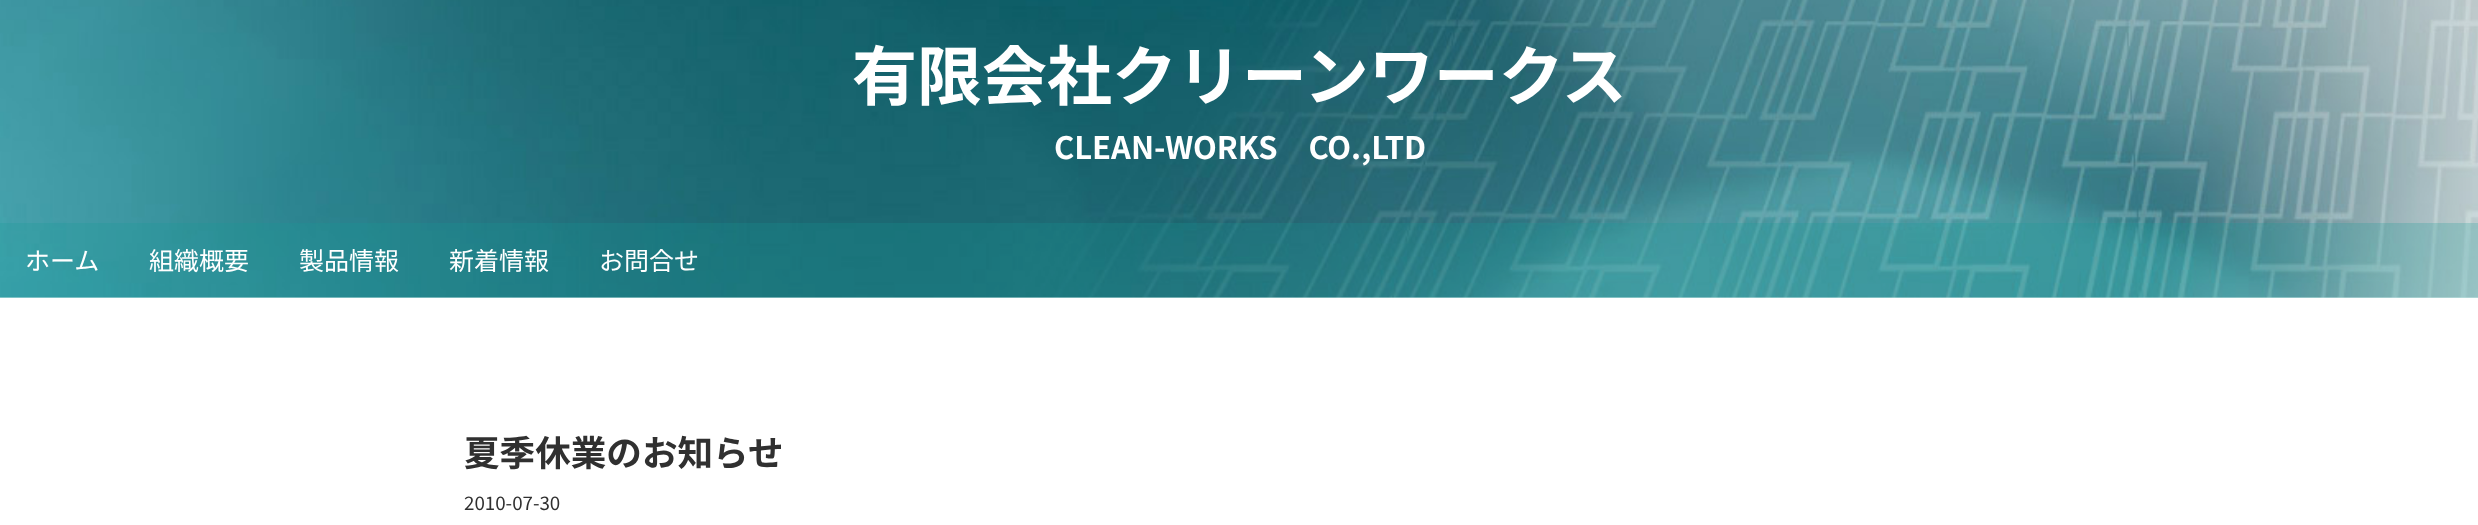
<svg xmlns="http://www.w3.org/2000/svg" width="2478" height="525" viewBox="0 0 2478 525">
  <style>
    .t1 { font: bold 65px Noto Sans JP; fill: #fff; }
    .t2 { font: bold 30.9px Noto Sans JP; fill: #fff; }
    .t3 { font: 25px Noto Sans JP; fill: #fff; }
    .t4 { font: bold 35.6px Noto Sans JP; fill: #303030; }
    .t5 { font: 18.75px Noto Sans JP; fill: #303030; }
  </style>
  <rect width="100%" height="100%" fill="#fff"/>
  <image x="0" y="0" width="2478" height="298" href="images/1.png"/>
  <text x="852" y="100" class="t1">有限会社クリーンワークス</text>
  <text x="1054" y="159" class="t2">CLEAN-WORKS　CO.,LTD</text>
  <rect x="0" y="223" width="2478" height="75" fill="#139a953d"/>
  <text x="25" y="270" class="t3">ホーム</text>
  <text x="149" y="270" class="t3">組織概要</text>
  <text x="299" y="270" class="t3">製品情報</text>
  <text x="449" y="270" class="t3">新着情報</text>
  <text x="599" y="270" class="t3">お問合せ</text>
  <text x="464" y="466" class="t4">夏季休業のお知らせ</text>
  <text x="464" y="510" class="t5">2010-07-30</text>
</svg>
